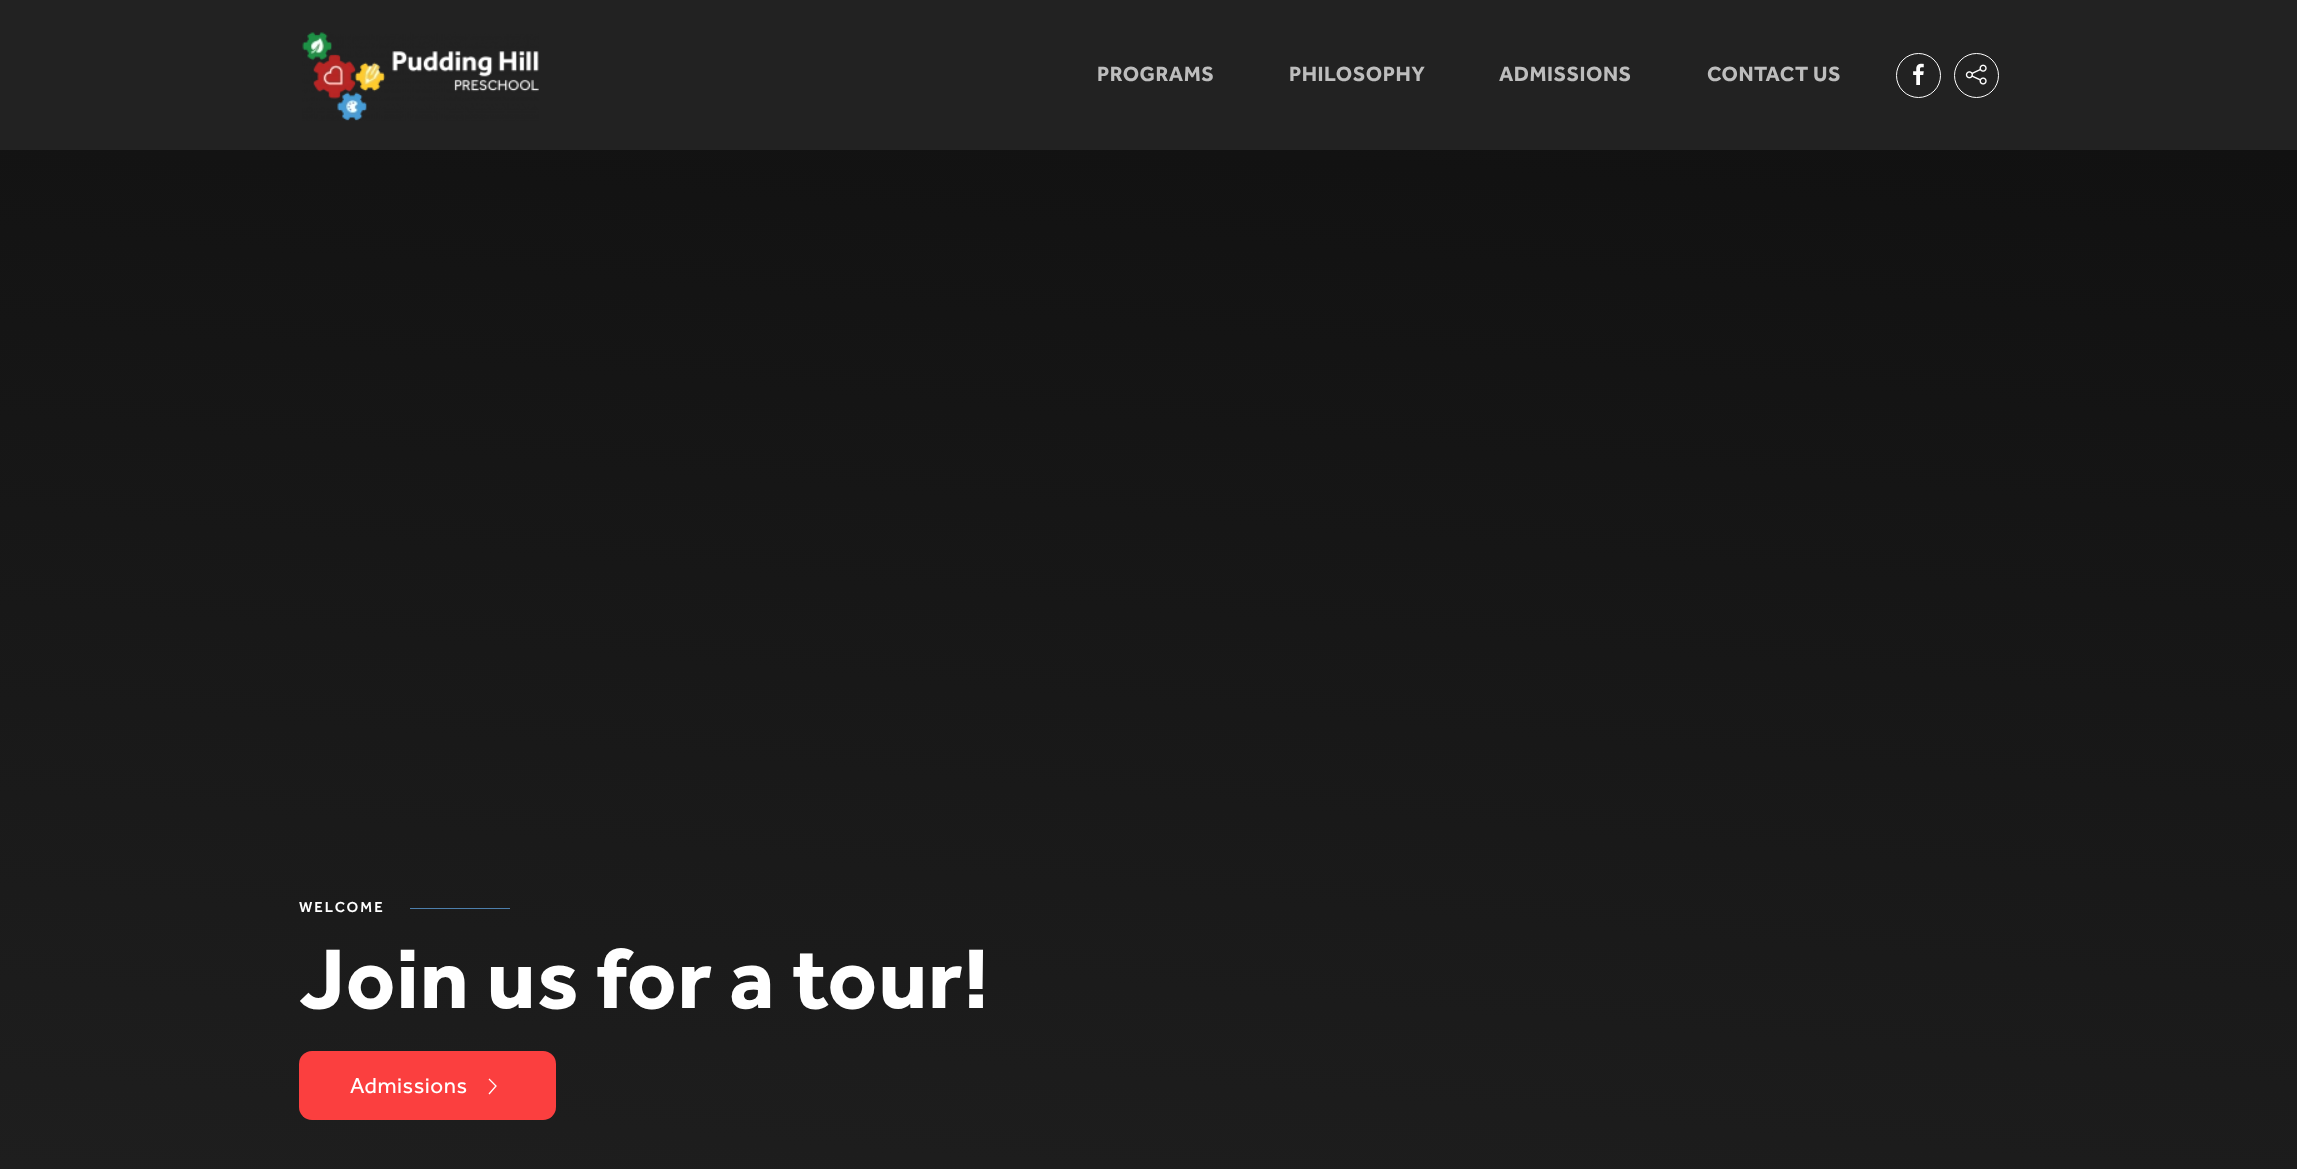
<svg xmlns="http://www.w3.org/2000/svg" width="2297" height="1169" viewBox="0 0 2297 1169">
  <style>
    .t1 { font: bold 21.25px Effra; letter-spacing: 0.5px; fill: #bdbdbd; }
    .t2 { font: 500 15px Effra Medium; letter-spacing: 2px; fill: #fff; }
    .t3 { font: bold 87.5px Effra; letter-spacing: 0.9px; fill: #fff; }
    .t4 { font: 22.5px Effra; letter-spacing: 0.5px; fill: #fff; }
  </style>
  <defs>
    <linearGradient id="g1" gradientUnits="userSpaceOnUse" x1="1096" y1="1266" x2="1202" y2="54"><stop offset="0" stop-color="#1e1e1e"/><stop offset="1" stop-color="#111"/></linearGradient>
  </defs>
  <rect width="100%" height="100%" fill="#fff"/>
  <rect x="0" y="0" width="2297" height="150" fill="#222"/>
  <image x="302" y="32" width="237" height="89" href="images/1.png"/>
  <text x="1097" y="81" class="t1">PROGRAMS</text>
  <text x="1289" y="81" class="t1">PHILOSOPHY</text>
  <text x="1499" y="81" class="t1">ADMISSIONS</text>
  <text x="1707" y="81" class="t1">CONTACT US</text>
  <circle cx="1918.5" cy="75.5" r="22" fill="none" stroke="#fff"/>
  <image x="1913" y="63" width="11" height="22" href="images/2.png"/>
  <circle cx="1976.5" cy="75.5" r="22" fill="none" stroke="#fff"/>
  <image x="1965" y="64" width="22" height="21" href="images/3.png"/>
  <rect x="0" y="150" width="2297" height="1019" fill="url(#g1)"/>
  <text x="299" y="912" class="t2">WELCOME</text>
  <rect x="410" y="908" width="100" height="1" fill="#4d7fac"/>
  <text x="299" y="1008" class="t3">Join us for a tour!</text>
  <rect x="299" y="1051" width="257" height="69" rx="13" fill="#fb3f3f"/>
  <text x="350" y="1093" class="t4">Admissions</text>
  <path d="M489 1079L496 1086L489 1094" fill="none" stroke="#fff" stroke-width="1.3"/>
</svg>
